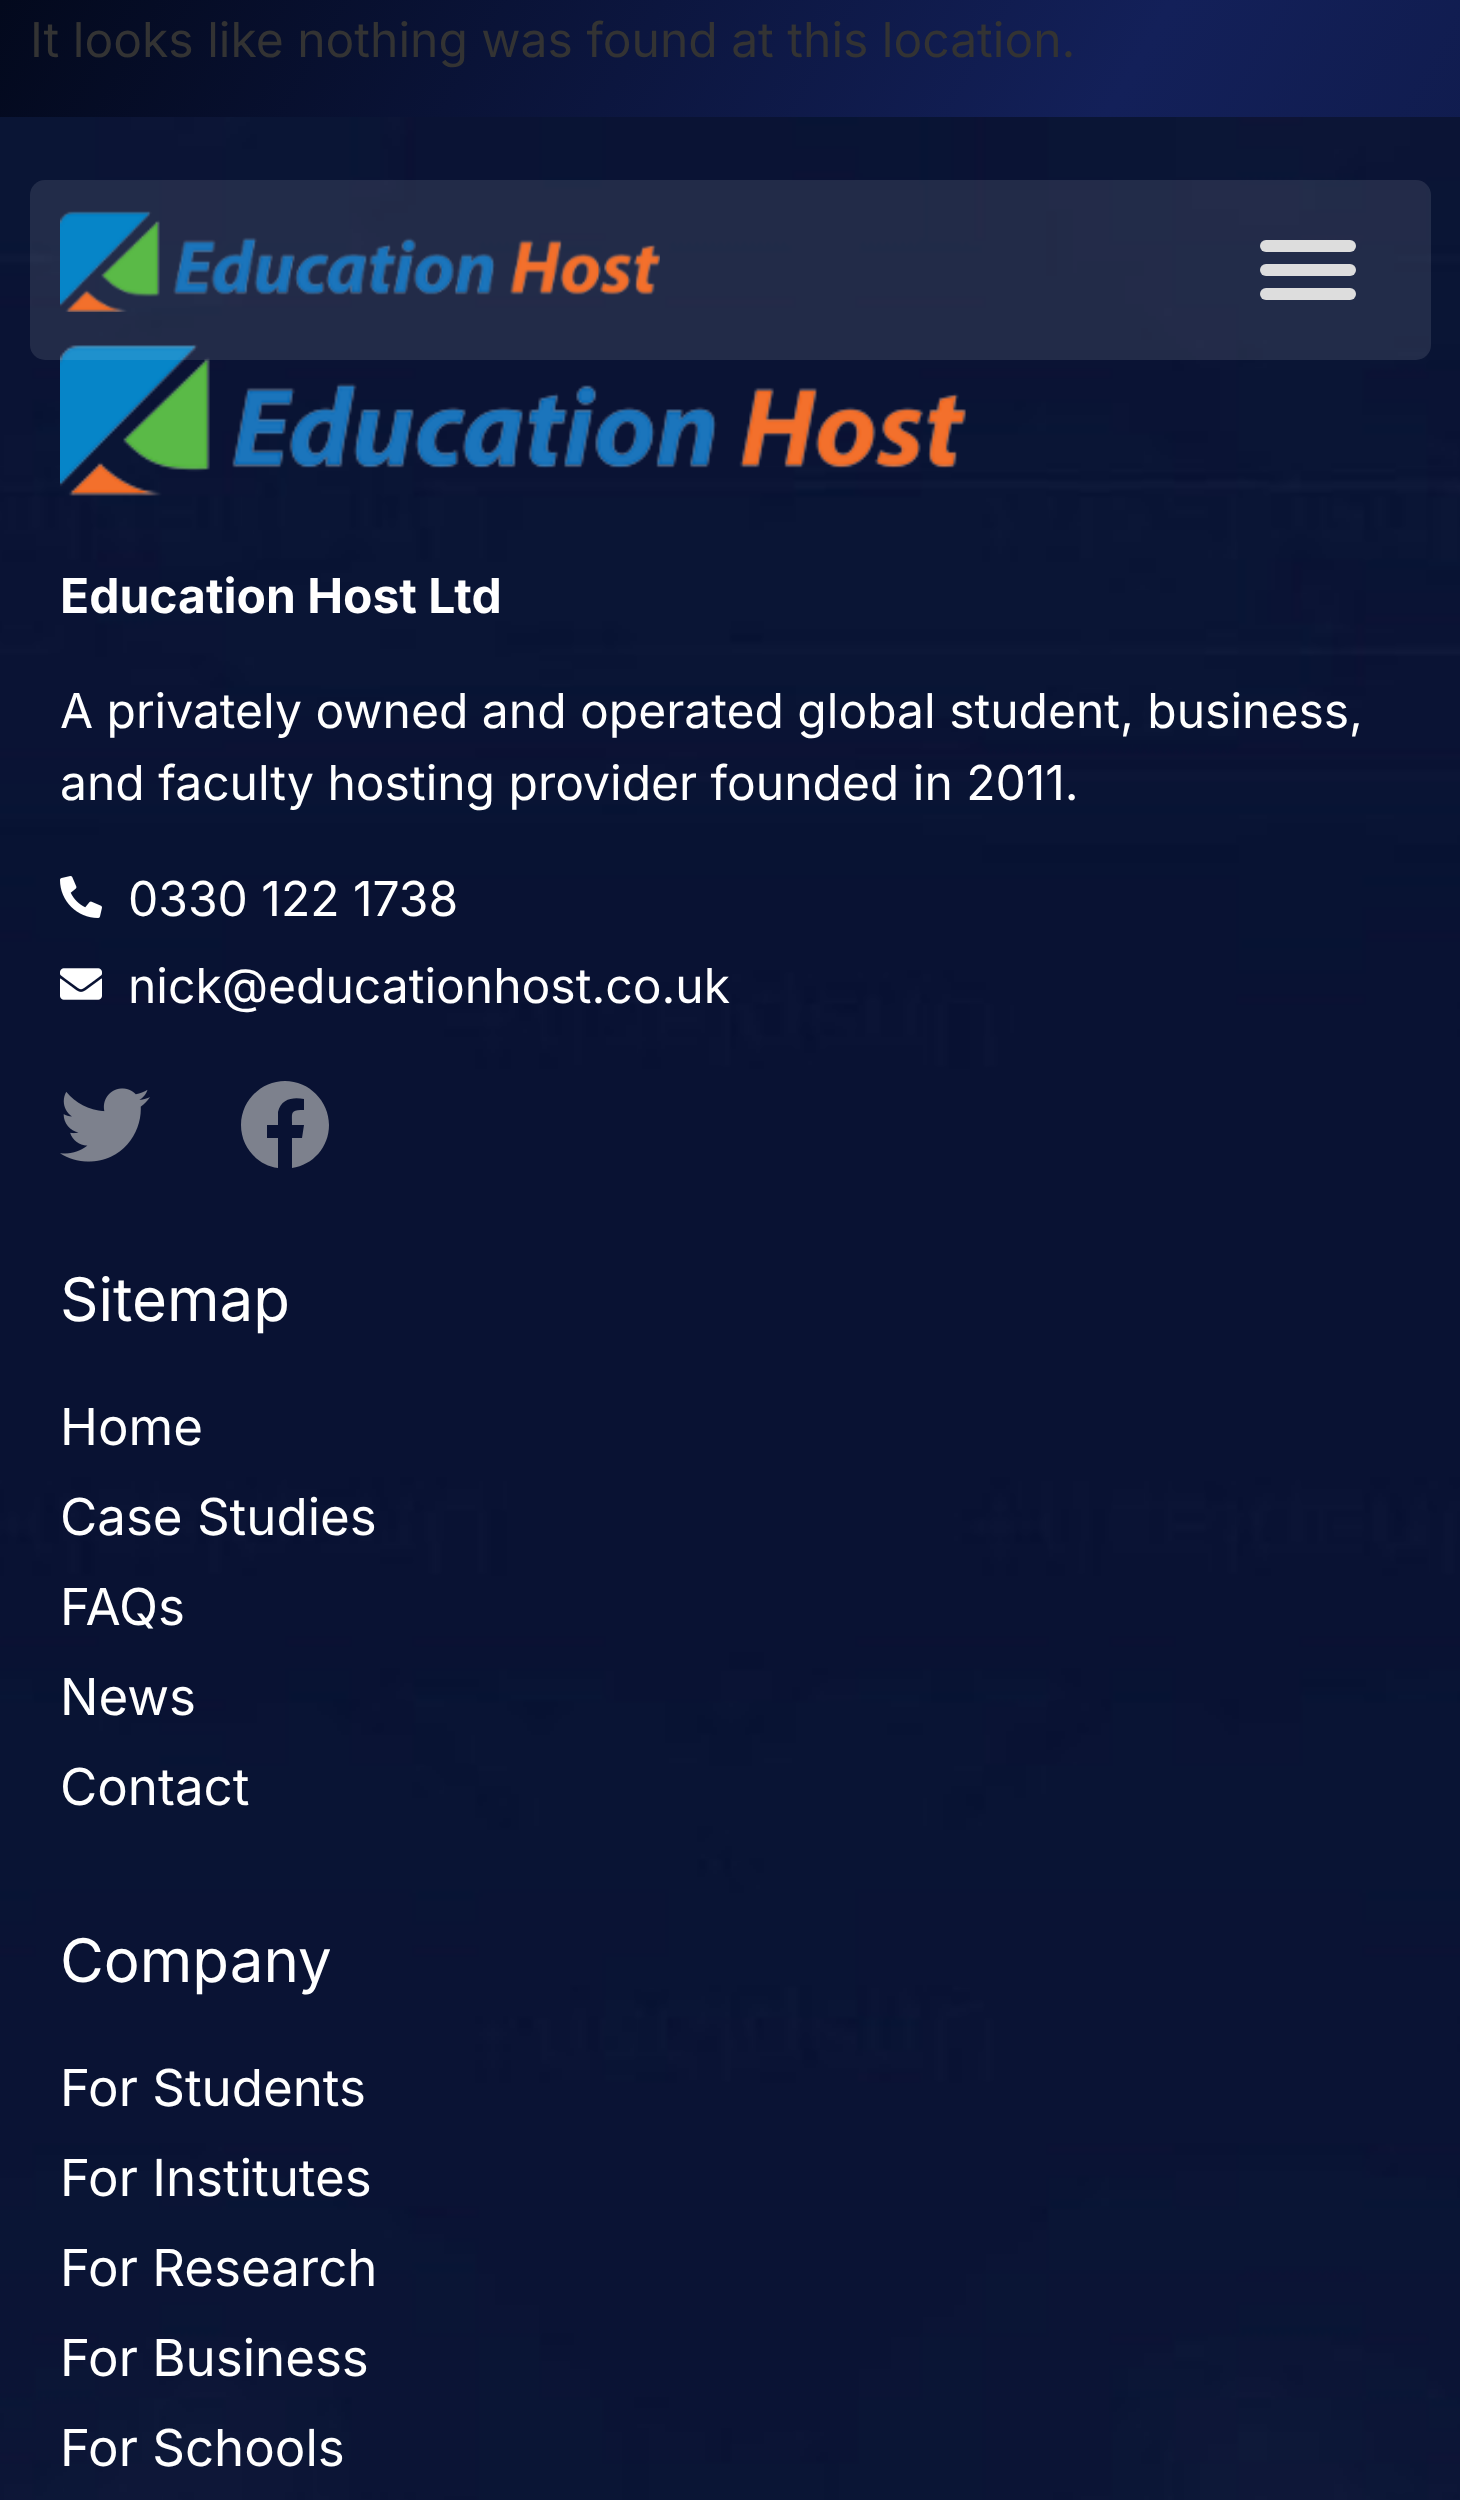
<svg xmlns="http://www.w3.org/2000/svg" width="1460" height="2500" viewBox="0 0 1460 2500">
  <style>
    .t1 { font: 48px Inter; fill: #333; }
    .t2 { font: bold 48px Inter; fill: #fff; }
    .t3 { font: 48px Inter; fill: #fff; }
    .t4 { font: 60px Inter; fill: #fff; }
    .t5 { font: 51px Inter; fill: #fff; }
  </style>
  <defs>
    <linearGradient id="g1" gradientUnits="userSpaceOnUse" x1="-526" y1="911" x2="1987" y2="2362"><stop offset="0" stop-color="#03091d"/><stop offset="0.35" stop-color="#132059"/><stop offset="1" stop-color="#03091d"/></linearGradient>
  </defs>
  <rect width="100%" height="100%" fill="#fff"/>
  <rect x="0" y="0" width="1460" height="117" fill="url(#g1)"/>
  <text x="30" y="57" class="t1">It looks like nothing was found at this location.</text>
  <image x="0" y="117" width="1460" height="2383" href="images/2.png"/>
  <image x="60" y="344" width="906" height="152" href="images/3.png"/>
  <rect x="30" y="180" width="1401" height="180" rx="15" fill="#ffffff1a"/>
  <image x="60" y="211" width="600" height="101" href="images/1.png"/>
  <rect x="1260" y="240" width="96" height="12" rx="6" fill="#ddd"/>
  <rect x="1260" y="264" width="96" height="12" rx="6" fill="#ddd"/>
  <rect x="1260" y="288" width="96" height="12" rx="6" fill="#ddd"/>
  <text x="60" y="613" class="t2">Education Host Ltd</text>
  <text x="60" y="728" class="t3">A privately owned and operated global student, business,</text>
  <text x="60" y="800" class="t3">and faculty hosting provider founded in 2011.</text>
  <image x="60" y="876" width="42" height="42" href="images/4.png"/>
  <text x="128" y="916" class="t3">0330 122 1738</text>
  <image x="60" y="968" width="42" height="32" href="images/5.png"/>
  <text x="128" y="1003" class="t3">nick@educationhost.co.uk</text>
  <image x="60" y="1088" width="90" height="74" href="images/6.png"/>
  <path d="M329 1125C329 1101 309 1081 285 1081C261 1081 241 1101 241 1125C241 1147 257 1165 278 1168V1138H267V1125H278V1112C281 1098 294 1097 304 1099V1110C290 1110 292 1112 292 1125H304L302 1138H292V1168C313 1165 329 1147 329 1125Z" fill="#7d818d"/>
  <text x="60" y="1321" class="t4">Sitemap</text>
  <text x="60" y="1445" class="t5">Home</text>
  <text x="60" y="1535" class="t5">Case Studies</text>
  <text x="60" y="1625" class="t5">FAQs</text>
  <text x="60" y="1715" class="t5">News</text>
  <text x="60" y="1805" class="t5">Contact</text>
  <text x="60" y="1982" class="t4">Company</text>
  <text x="60" y="2106" class="t5">For Students</text>
  <text x="60" y="2196" class="t5">For Institutes</text>
  <text x="60" y="2286" class="t5">For Research</text>
  <text x="60" y="2376" class="t5">For Business</text>
  <text x="60" y="2466" class="t5">For Schools</text>
</svg>
